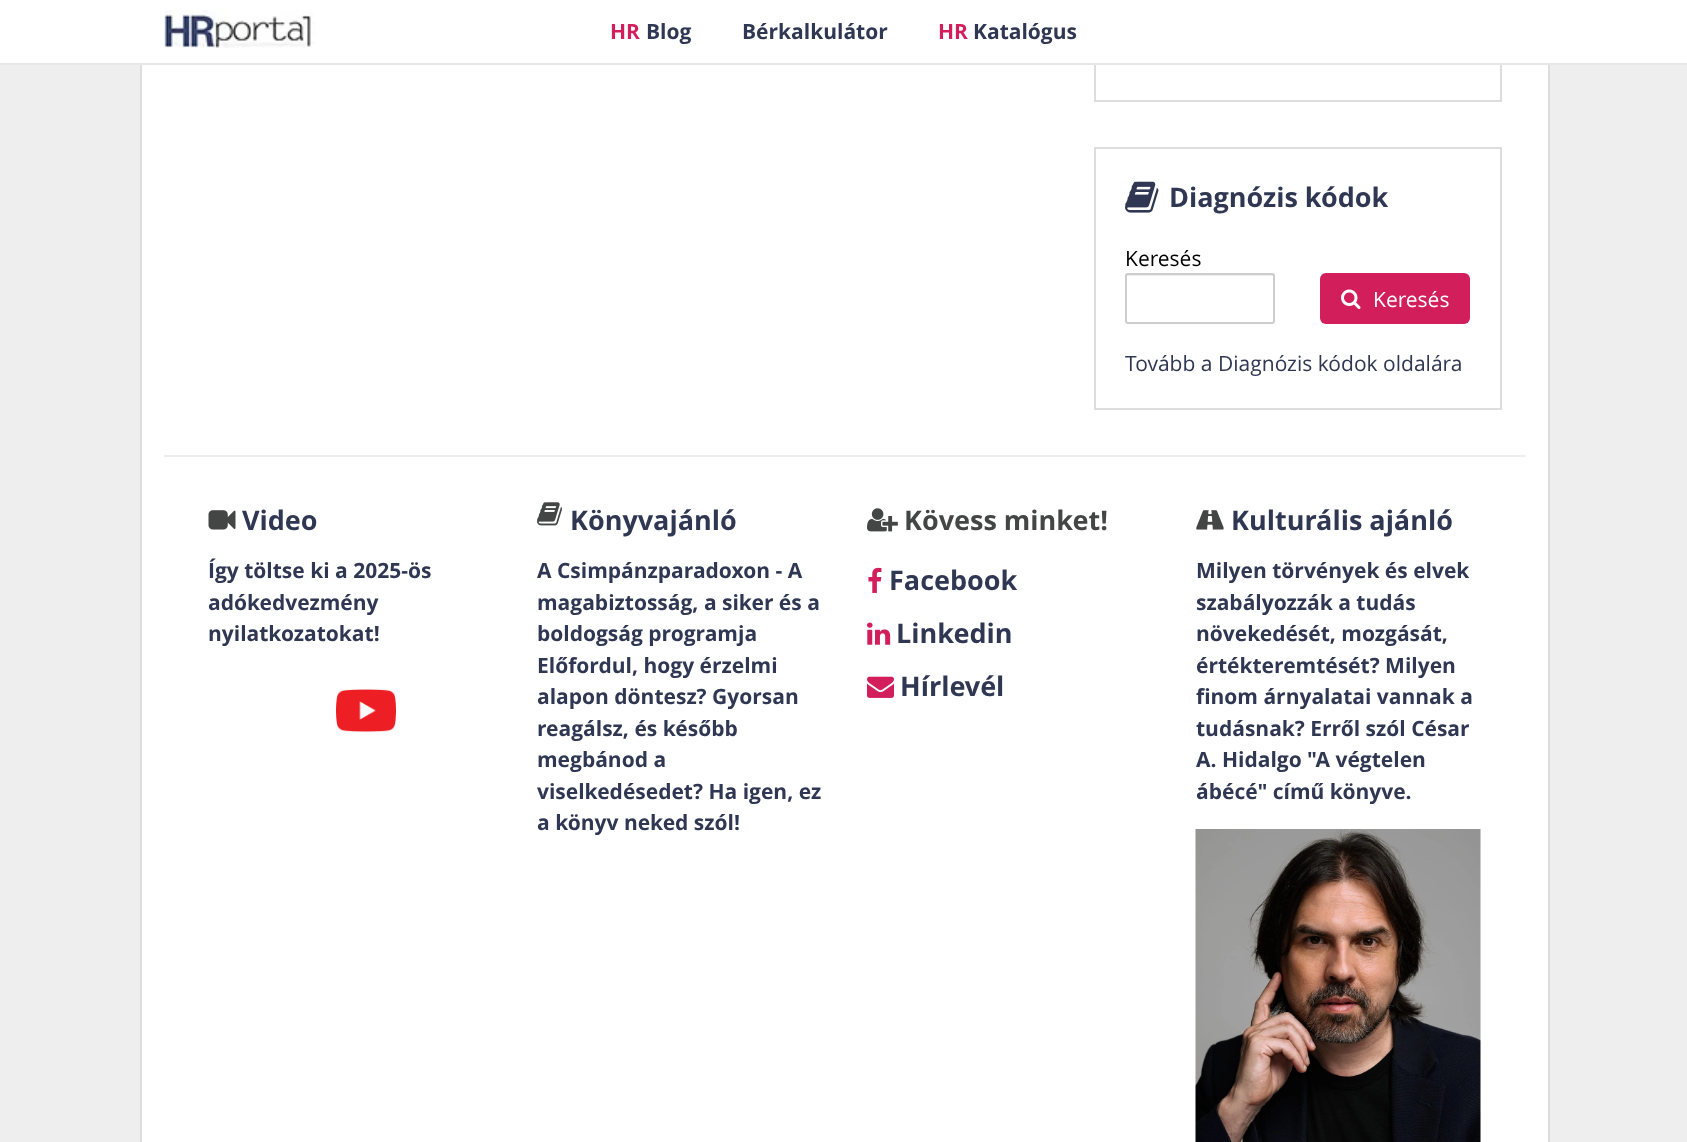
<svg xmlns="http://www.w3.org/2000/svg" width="1687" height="1142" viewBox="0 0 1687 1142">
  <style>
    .t1 { font: bold 21px Open Sans; fill: #d21e5a; }
    .t2 { font: bold 21px Open Sans; fill: #2f3753; }
    .t3 { font: bold 27px Open Sans; fill: #2f3753; }
    .t4 { font: 21px Open Sans; fill: #000; }
    .t5 { font: 21px Open Sans; fill: #fff; }
    .t6 { font: 21px Open Sans; fill: #2f3753; }
    .t7 { font: bold 27px Open Sans; fill: #444645; }
  </style>
  <rect width="100%" height="100%" fill="#eee"/>
  <rect x="142" y="65" width="1406" height="1077" fill="#fff"/>
  <rect x="1548" y="65" width="2" height="1077" fill="#ddd"/>
  <rect x="140" y="65" width="2" height="1077" fill="#ddd"/>
  <rect x="1095" y="-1" width="406" height="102" fill="none" stroke="#ddd" stroke-width="2"/>
  <rect x="0" y="0" width="1687" height="63" fill="#fff"/>
  <rect x="0" y="63" width="1687" height="2" fill="#e7e7e7"/>
  <image x="164" y="10" width="151" height="38" href="images/1.png"/>
  <text x="610" y="39" class="t1">HR</text>
  <text x="646" y="39" class="t2">Blog</text>
  <text x="742" y="39" class="t2">Bérkalkulátor</text>
  <text x="938" y="39" class="t1">HR</text>
  <text x="973" y="39" class="t2">Katalógus</text>
  <rect x="1095" y="148" width="406" height="261" fill="none" stroke="#ddd" stroke-width="2"/>
  <image x="1125" y="181" width="34" height="32" href="images/2.png"/>
  <text x="1169" y="207" class="t3">Diagnózis kódok</text>
  <text x="1125" y="266" class="t4">Keresés</text>
  <path d="M1128 276H1272C1273 276 1274 277 1274 278V276C1274 276 1273 275 1272 275H1128C1128 275 1127 276 1127 276Z" fill="#ececec"/>
  <rect x="1126" y="274" width="148" height="49" rx="2" fill="none" stroke="#ccc" stroke-width="2"/>
  <rect x="1320" y="273" width="150" height="51" rx="6" fill="#d21e5a"/>
  <image x="1341" y="289" width="20" height="20" href="images/3.png"/>
  <text x="1373" y="307" class="t5">Keresés</text>
  <text x="1125" y="371" class="t6">Tovább a Diagnózis kódok oldalára</text>
  <rect x="164" y="455" width="1362" height="2" fill="#eee"/>
  <image x="208" y="510" width="28" height="20" href="images/4.png"/>
  <text x="242" y="530" class="t3">Video</text>
  <text x="208" y="578" class="t2">Így töltse ki a 2025-ös</text>
  <text x="208" y="610" class="t2">adókedvezmény</text>
  <text x="208" y="641" class="t2">nyilatkozatokat!</text>
  <image x="336" y="689" width="60" height="44" href="images/5.png"/>
  <image x="537" y="502" width="26" height="24" href="images/6.png"/>
  <text x="570" y="530" class="t3">Könyvajánló</text>
  <text x="537" y="578" class="t2">A Csimpánzparadoxon - A</text>
  <text x="537" y="610" class="t2">magabiztosság, a siker és a</text>
  <text x="537" y="641" class="t2">boldogság programja</text>
  <text x="537" y="673" class="t2">Előfordul, hogy érzelmi</text>
  <text x="537" y="704" class="t2">alapon döntesz? Gyorsan</text>
  <text x="537" y="736" class="t2">reagálsz, és később</text>
  <text x="537" y="767" class="t2">megbánod a</text>
  <text x="537" y="799" class="t2">viselkedésedet? Ha igen, ez</text>
  <text x="537" y="830" class="t2">a könyv neked szól!</text>
  <image x="867" y="508" width="31" height="24" href="images/7.png"/>
  <text x="904" y="530" class="t7">Kövess minket!</text>
  <image x="868" y="567" width="14" height="26" href="images/8.png"/>
  <text x="889" y="590" class="t3">Facebook</text>
  <image x="867" y="622" width="24" height="23" href="images/9.png"/>
  <text x="896" y="643" class="t3">Linkedin</text>
  <image x="867" y="676" width="27" height="22" href="images/10.png"/>
  <text x="900" y="696" class="t3">Hírlevél</text>
  <image x="1196" y="510" width="28" height="20" href="images/11.png"/>
  <text x="1231" y="530" class="t3">Kulturális ajánló</text>
  <text x="1196" y="578" class="t2">Milyen törvények és elvek</text>
  <text x="1196" y="610" class="t2">szabályozzák a tudás</text>
  <text x="1196" y="641" class="t2">növekedését, mozgását,</text>
  <text x="1196" y="673" class="t2">értékteremtését? Milyen</text>
  <text x="1196" y="704" class="t2">finom árnyalatai vannak a</text>
  <text x="1196" y="736" class="t2">tudásnak? Erről szól César</text>
  <text x="1196" y="767" class="t2">A. Hidalgo "A végtelen</text>
  <text x="1196" y="799" class="t2">ábécé" című könyve.</text>
  <image x="1195" y="829" width="286" height="313" href="images/12.png"/>
</svg>
